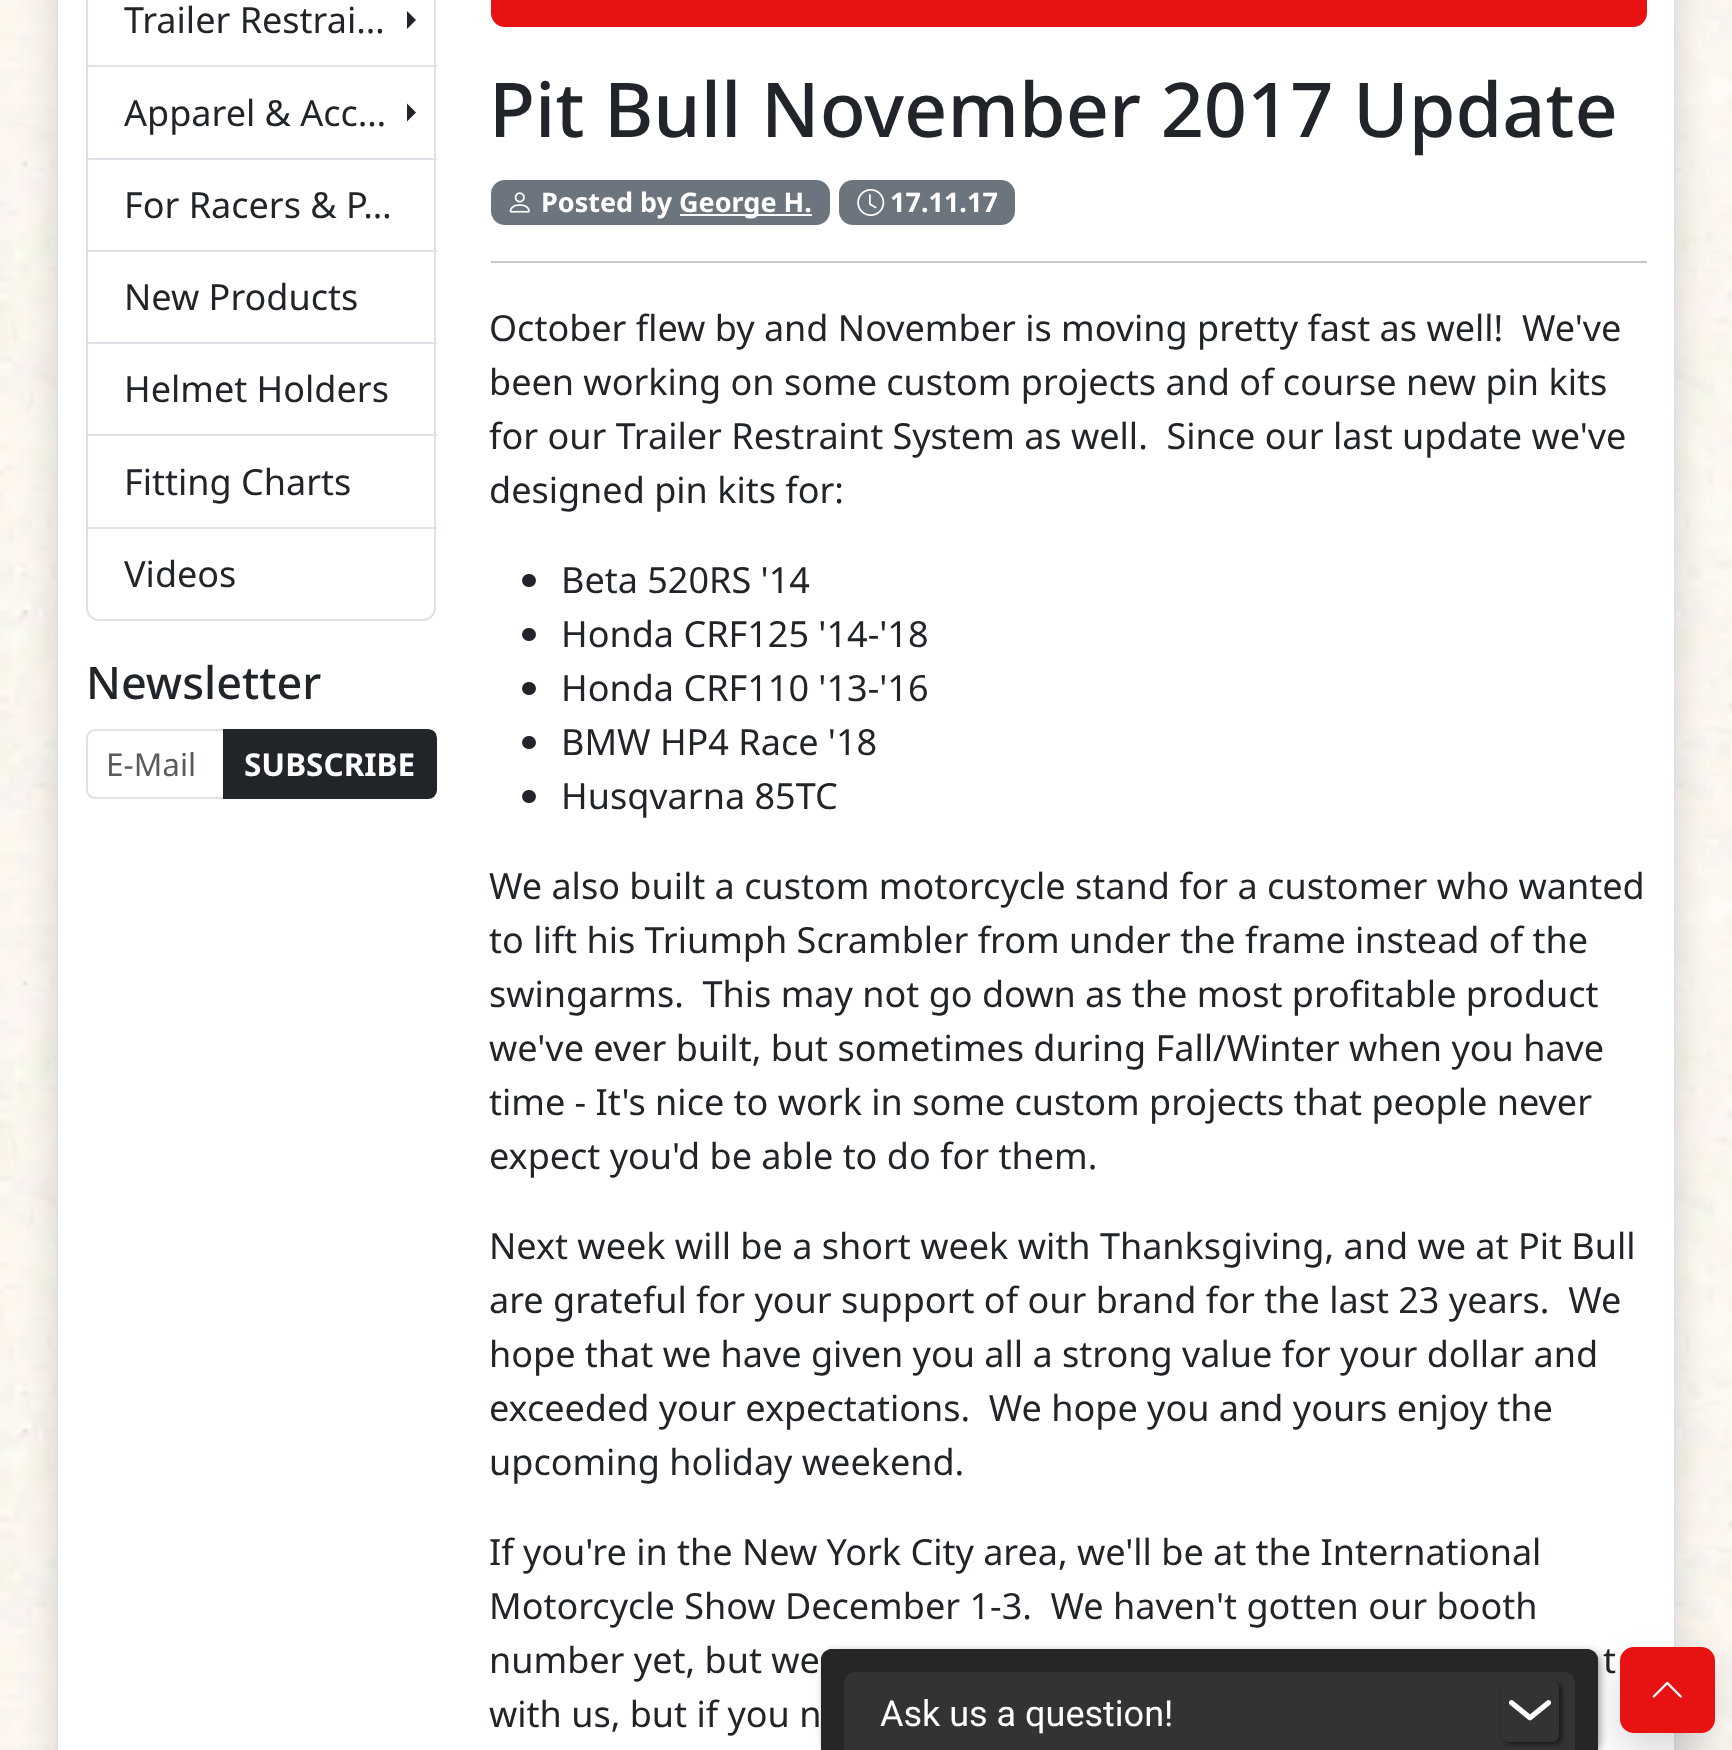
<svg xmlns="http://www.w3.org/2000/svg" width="1732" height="1750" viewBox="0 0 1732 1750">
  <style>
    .t1 { font: 36px Noto Sans; fill: #212529; }
    .t2 { font: 500 45px Noto Sans; fill: #212529; }
    .t3 { font: 31.5px Noto Sans; fill: #595c5f; }
    .t4 { font: bold 31.5px Noto Sans; fill: #fff; }
    .t5 { font: 500 75.5px Noto Sans; fill: #212529; }
    .t6 { font: bold 27px Noto Sans; fill: #fff; }
    .t7 { font: 36px Roboto; fill: #fff; }
  </style>
  <defs>
    <clipPath id="clip1"><path d="M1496 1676H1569V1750H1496ZM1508 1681H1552C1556 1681 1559 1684 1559 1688V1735C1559 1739 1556 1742 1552 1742H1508C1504 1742 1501 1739 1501 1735V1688C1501 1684 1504 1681 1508 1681Z" clip-rule="evenodd"/></clipPath>
  </defs>
  <rect width="100%" height="100%" fill="#fff"/>
  <image x="0" y="0" width="1732" height="1750" href="images/1.png"/>
  <rect x="56" y="-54" width="1620" height="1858" fill="#00000026" filter="blur(18px)"/>
  <rect x="58" y="0" width="1616" height="1750" fill="#fff"/>
  <rect x="1674" y="0" width="2" height="1750" fill="#dee2e6"/>
  <rect x="56" y="0" width="2" height="1750" fill="#dee2e6"/>
  <rect x="434" y="0" width="2" height="529" fill="#dee2e6"/>
  <rect x="86" y="65" width="351" height="2" fill="#dee2e6"/>
  <rect x="86" y="0" width="2" height="68" fill="#dee2e6"/>
  <text x="124" y="33" class="t1">Trailer Restrai…</text>
  <path d="M407 29V11L416 20Z" fill="#212529"/>
  <rect x="86" y="158" width="351" height="2" fill="#dee2e6"/>
  <rect x="86" y="68" width="2" height="92" fill="#dee2e6"/>
  <text x="124" y="126" class="t1">Apparel &amp; Acc…</text>
  <path d="M407 121.5V103.5L416 112.5Z" fill="#212529"/>
  <rect x="86" y="250" width="351" height="2" fill="#dee2e6"/>
  <rect x="86" y="160" width="2" height="92" fill="#dee2e6"/>
  <text x="124" y="218" class="t1">For Racers &amp; P…</text>
  <rect x="86" y="342" width="351" height="2" fill="#dee2e6"/>
  <rect x="86" y="252" width="2" height="92" fill="#dee2e6"/>
  <text x="124" y="310" class="t1">New Products</text>
  <rect x="86" y="434" width="351" height="2" fill="#dee2e6"/>
  <rect x="86" y="344" width="2" height="93" fill="#dee2e6"/>
  <text x="124" y="402" class="t1">Helmet Holders</text>
  <rect x="86" y="527" width="351" height="2" fill="#dee2e6"/>
  <rect x="86" y="437" width="2" height="92" fill="#dee2e6"/>
  <text x="124" y="495" class="t1">Fitting Charts</text>
  <path d="M86 529H436V608C436 615 430 621 423 621H99C92 621 86 615 86 608ZM88 529H434V608C434 614 429 619 423 619H99C93 619 88 614 88 608Z" fill="#dee2e6" fill-rule="evenodd"/>
  <text x="124" y="587" class="t1">Videos</text>
  <text x="86" y="699" class="t2">Newsletter</text>
  <path d="M95 730H224V798H95C90.5 798 87 794.5 87 790V738C87 733.5 90.5 730 95 730Z" fill="none" stroke="#dee2e6" stroke-width="2"/>
  <text x="106" y="776" class="t3">E-Mail</text>
  <path d="M224 730H428C432.5 730 436 733.5 436 738V790C436 794.5 432.5 798 428 798H224Z" fill="#212529" stroke="#212529" stroke-width="2"/>
  <text x="244" y="776" class="t4">SUBSCRIBE</text>
  <rect x="491" y="-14" width="1156" height="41" rx="14" fill="#e81213"/>
  <text x="489" y="137" class="t5">Pit Bull November 2017 Update</text>
  <rect x="491" y="180" width="339" height="45" rx="14" fill="#6c757d"/>
  <image x="509" y="192" width="21" height="21" href="images/2.png"/>
  <text x="541" y="212" class="t6">Posted by</text>
  <rect x="680" y="214" width="132" height="2" fill="#f8f9fa"/>
  <text x="679" y="212" class="t6">George H.</text>
  <rect x="839" y="180" width="176" height="45" rx="14" fill="#6c757d"/>
  <image x="857" y="189" width="28" height="27" href="images/3.png"/>
  <text x="890" y="212" class="t6">17.11.17</text>
  <rect x="491" y="261" width="1156" height="2" fill="#c8c9ca"/>
  <text x="489" y="341" class="t1" xml:space="preserve">October flew by and November is moving pretty fast as well!  We've</text>
  <text x="489" y="395" class="t1">been working on some custom projects and of course new pin kits</text>
  <text x="489" y="449" class="t1" xml:space="preserve">for our Trailer Restraint System as well.  Since our last update we've</text>
  <text x="489" y="503" class="t1">designed pin kits for:</text>
  <rect x="522" y="574" width="14" height="13" rx="6.5" fill="#212529"/>
  <text x="561" y="593" class="t1">Beta 520RS '14</text>
  <rect x="522" y="628" width="14" height="13" rx="6.5" fill="#212529"/>
  <text x="561" y="647" class="t1">Honda CRF125 '14-'18</text>
  <rect x="522" y="682" width="14" height="13" rx="6.5" fill="#212529"/>
  <text x="561" y="701" class="t1">Honda CRF110 '13-'16</text>
  <rect x="522" y="736" width="14" height="13" rx="6.5" fill="#212529"/>
  <text x="561" y="755" class="t1">BMW HP4 Race '18</text>
  <rect x="522" y="790" width="14" height="13" rx="6.5" fill="#212529"/>
  <text x="561" y="809" class="t1">Husqvarna 85TC</text>
  <text x="489" y="899" class="t1">We also built a custom motorcycle stand for a customer who wanted</text>
  <text x="489" y="953" class="t1">to lift his Triumph Scrambler from under the frame instead of the</text>
  <text x="489" y="1007" class="t1" xml:space="preserve">swingarms.  This may not go down as the most profitable product</text>
  <text x="489" y="1061" class="t1">we've ever built, but sometimes during Fall/Winter when you have</text>
  <text x="489" y="1115" class="t1">time - It's nice to work in some custom projects that people never</text>
  <text x="489" y="1169" class="t1">expect you'd be able to do for them.</text>
  <text x="489" y="1259" class="t1">Next week will be a short week with Thanksgiving, and we at Pit Bull</text>
  <text x="489" y="1313" class="t1" xml:space="preserve">are grateful for your support of our brand for the last 23 years.  We</text>
  <text x="489" y="1367" class="t1">hope that we have given you all a strong value for your dollar and</text>
  <text x="489" y="1421" class="t1" xml:space="preserve">exceeded your expectations.  We hope you and yours enjoy the</text>
  <text x="489" y="1475" class="t1">upcoming holiday weekend.</text>
  <text x="489" y="1565" class="t1">If you're in the New York City area, we'll be at the International</text>
  <text x="489" y="1619" class="t1" xml:space="preserve">Motorcycle Show December 1-3.  We haven't gotten our booth</text>
  <text x="489" y="1673" class="t1">number yet, but we</text>
  <text x="1603" y="1673" class="t1">t</text>
  <text x="489" y="1727" class="t1">with us, but if you n</text>
  <rect x="1620" y="1665" width="95" height="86" rx="14" fill="#00000026" filter="blur(18px)"/>
  <rect x="1621" y="1648" width="93" height="84" rx="13" fill="#e81213" stroke="#e81213" stroke-width="2"/>
  <image x="1652" y="1681" width="30" height="17" href="images/4.png"/>
  <rect x="824" y="1652" width="776" height="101" rx="11" fill="#00000066" filter="blur(4.5px)"/>
  <path d="M832 1649H1587C1593 1649 1598 1654 1598 1660V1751H821V1660C821 1654 826 1649 832 1649Z" fill="#262626"/>
  <path d="M832 1649H1586C1592 1649 1598 1654 1598 1660V1750H821V1660C821 1654 826 1649 832 1649ZM844 1672H1575V1750H844Z" fill="#262626" fill-rule="evenodd"/>
  <path d="M855 1672H1564C1570 1672 1575 1677 1575 1683V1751H844V1683C844 1677 849 1672 855 1672Z" fill="#333"/>
  <text x="880" y="1726" class="t7">Ask us a question!</text>
  <g clip-path="url(#clip1)">
    <rect x="1503" y="1683" width="59" height="61" rx="7" fill="#00000080" filter="blur(2px)"/>
  </g>
  <image x="1508" y="1700" width="44" height="21" href="images/5.png"/>
</svg>
